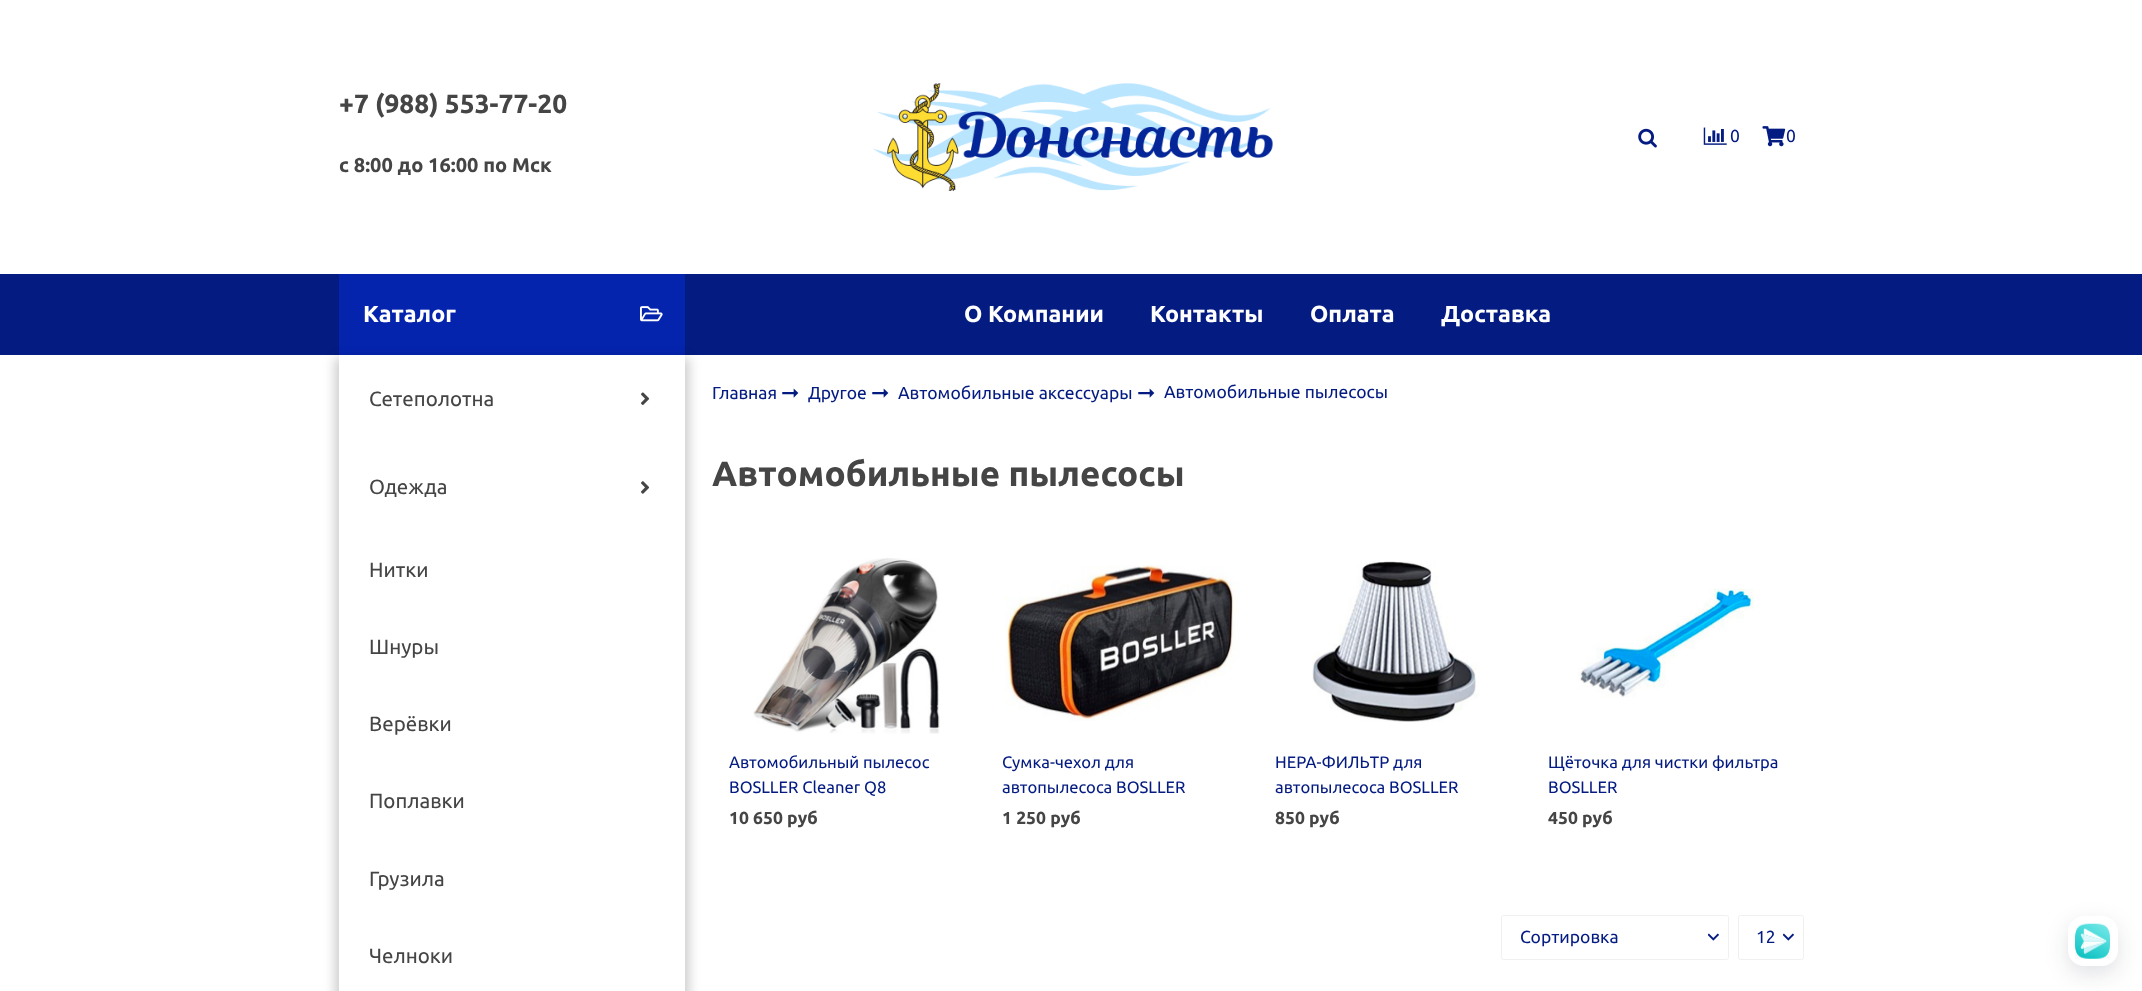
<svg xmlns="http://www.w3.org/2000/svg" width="2142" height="991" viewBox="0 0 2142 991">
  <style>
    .t1 { font: bold 26.25px Ubuntu; fill: #454545; }
    .t2 { font: bold 20px Ubuntu; fill: #454545; }
    .t3 { font: 17.5px Ubuntu; fill: #041b81; }
    .t4 { font: bold 23.25px Ubuntu; fill: #fff; }
    .t5 { font: 20.5px Ubuntu; fill: #454545; }
    .t6 { font: 22px DejaVu Sans; fill: #041b81; }
    .t7 { font: bold 35px Ubuntu; fill: #454545; }
    .t8 { font: 16.6px Ubuntu; fill: #041b81; }
    .t9 { font: bold 17.5px Ubuntu; fill: #454545; }
  </style>
  <defs>
    <clipPath id="clip1"><path d="M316 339H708V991H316ZM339 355H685V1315H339Z" clip-rule="evenodd"/></clipPath>
  </defs>
  <rect width="100%" height="100%" fill="#fff"/>
  <text x="339" y="113" class="t1">+7 (988) 553-77-20</text>
  <text x="339" y="172" class="t2">с 8:00 до 16:00 по Мск</text>
  <image x="873" y="83" width="400" height="109" href="images/1.png"/>
  <image x="1638" y="128" width="19" height="20" href="images/2.png"/>
  <image x="1703" y="127" width="24" height="18" href="images/3.png"/>
  <text x="1730" y="142" class="t3">0</text>
  <image x="1762" y="126" width="24" height="21" href="images/4.png"/>
  <text x="1786" y="142" class="t3">0</text>
  <rect x="0" y="274" width="2142" height="81" fill="#041b81"/>
  <rect x="339" y="274" width="346" height="81" fill="#0524ae"/>
  <text x="363" y="322" class="t4">Каталог</text>
  <image x="640" y="306" width="23" height="16" href="images/5.png"/>
  <text x="964" y="322" class="t4">О Компании</text>
  <text x="1150" y="322" class="t4">Контакты</text>
  <text x="1310" y="322" class="t4">Оплата</text>
  <text x="1441" y="322" class="t4">Доставка</text>
  <g clip-path="url(#clip1)">
    <rect x="335" y="358" width="354" height="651" fill="#00000033" filter="blur(6px)"/>
  </g>
  <text x="369" y="406" class="t5">Сетеполотна</text>
  <image x="641" y="392" width="9" height="13" href="images/6.png"/>
  <text x="369" y="494" class="t5">Одежда</text>
  <image x="641" y="481" width="9" height="13" href="images/7.png"/>
  <text x="369" y="577" class="t5">Нитки</text>
  <text x="369" y="654" class="t5">Шнуры</text>
  <text x="369" y="731" class="t5">Верёвки</text>
  <text x="369" y="808" class="t5">Поплавки</text>
  <text x="369" y="886" class="t5">Грузила</text>
  <text x="369" y="963" class="t5">Челноки</text>
  <text x="712" y="399" class="t3">Главная</text>
  <text x="781" y="400" class="t6">➞</text>
  <text x="808" y="399" class="t3">Другое</text>
  <text x="871" y="400" class="t6">➞</text>
  <text x="898" y="399" class="t3">Автомобильные аксессуары</text>
  <text x="1137" y="400" class="t6">➞</text>
  <text x="1164" y="398" class="t3">Автомобильные пылесосы</text>
  <text x="712" y="486" class="t7">Автомобильные пылесосы</text>
  <image x="753" y="558" width="187" height="176" href="images/8.png"/>
  <text x="729" y="768" class="t8">Автомобильный пылесос</text>
  <text x="729" y="793" class="t8">BOSLLER Cleaner Q8</text>
  <text x="729" y="824" class="t9">10 650 руб</text>
  <image x="1005" y="565" width="235" height="156" href="images/9.png"/>
  <text x="1002" y="768" class="t8">Сумка-чехол для</text>
  <text x="1002" y="793" class="t8">автопылесоса BOSLLER</text>
  <text x="1002" y="824" class="t9">1 250 руб</text>
  <image x="1312" y="561" width="168" height="161" href="images/10.png"/>
  <text x="1275" y="768" class="t8">HEPA-ФИЛЬТР для</text>
  <text x="1275" y="793" class="t8">автопылесоса BOSLLER</text>
  <text x="1275" y="824" class="t9">850 руб</text>
  <image x="1578" y="588" width="176" height="110" href="images/11.png"/>
  <text x="1548" y="768" class="t8">Щёточка для чистки фильтра</text>
  <text x="1548" y="793" class="t8">BOSLLER</text>
  <text x="1548" y="824" class="t9">450 руб</text>
  <image x="1708" y="933" width="11" height="8" href="images/12.png"/>
  <rect x="1501.5" y="915.5" width="227" height="44" rx="2" fill="none" stroke="#f0f0f0"/>
  <text x="1520" y="943" class="t3">Сортировка</text>
  <image x="1783" y="933" width="11" height="8" href="images/12.png"/>
  <rect x="1738.5" y="915.5" width="65" height="44" rx="2" fill="none" stroke="#f0f0f0"/>
  <text x="1756" y="943" class="t3">12</text>
  <rect x="2068" y="924" width="50" height="50" rx="16" fill="#0e152f21" filter="blur(11px)"/>
  <rect x="2068" y="916" width="50" height="50" rx="16" fill="#fff"/>
  <image x="2075" y="923" width="35" height="36" href="images/13.png"/>
</svg>
